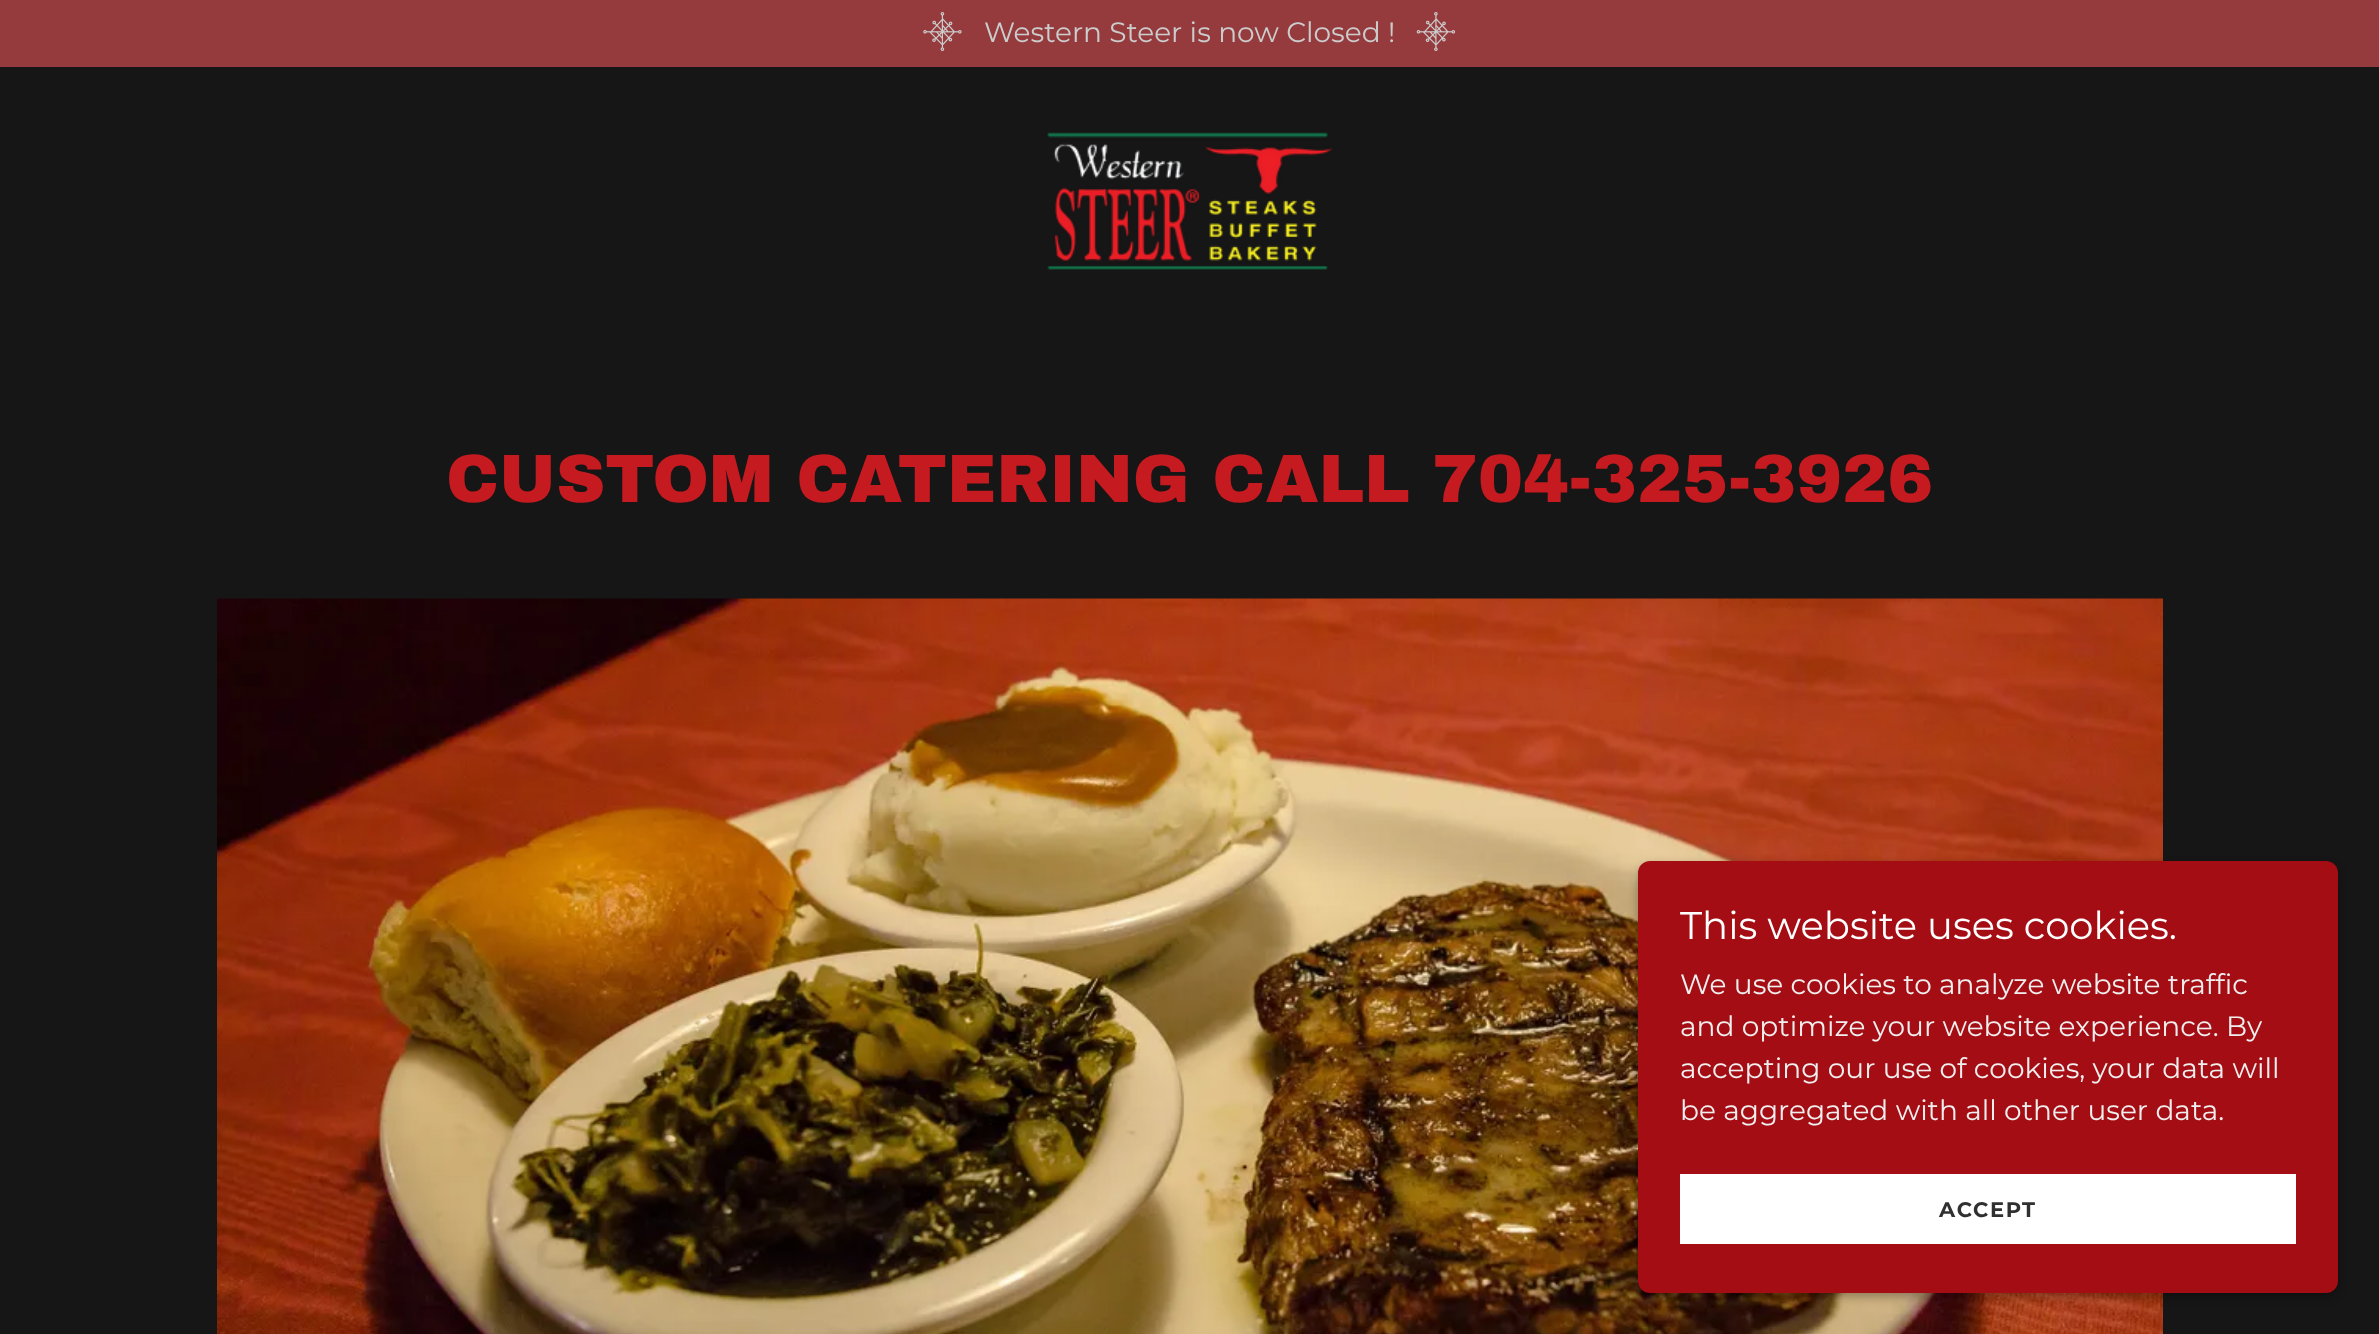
<svg xmlns="http://www.w3.org/2000/svg" width="2379" height="1334" viewBox="0 0 2379 1334">
  <style>
    .t1 { font: 28px Montserrat; fill: #ccc; }
    .t2 { font: 900 68.25px Archivo Black; fill: #c41a20; }
    .t3 { font: 38.5px Montserrat; fill: #fff; }
    .t4 { font: 28px Montserrat; fill: #f0eeee; }
    .t5 { font: bold 21px Montserrat; letter-spacing: 1.75px; fill: #303030; }
  </style>
  <rect width="100%" height="100%" fill="#161616"/>
  <rect x="0" y="0" width="2379" height="67" fill="#953b3e"/>
  <image x="923" y="12" width="39" height="39" href="images/1.png"/>
  <text x="984" y="42" class="t1">Western Steer is now Closed !</text>
  <image x="1416" y="12" width="40" height="39" href="images/2.png"/>
  <image x="1047" y="132" width="286" height="138" href="images/3.png"/>
  <text x="446" y="502" class="t2">CUSTOM CATERING CALL 704-325-3926</text>
  <image x="217" y="598" width="1946" height="736" href="images/4.png"/>
  <rect x="1638" y="865" width="700" height="432" rx="12" fill="#0000004d" filter="blur(5px)"/>
  <rect x="1638" y="861" width="700" height="432" rx="12" fill="#a30d13"/>
  <text x="1680" y="939" class="t3">This website uses cookies.</text>
  <text x="1680" y="994" class="t4">We use cookies to analyze website traffic</text>
  <text x="1680" y="1036" class="t4">and optimize your website experience. By</text>
  <text x="1680" y="1078" class="t4">accepting our use of cookies, your data will</text>
  <text x="1680" y="1120" class="t4">be aggregated with all other user data.</text>
  <rect x="1680" y="1174" width="616" height="70" fill="#fff"/>
  <text x="1939" y="1217" class="t5">ACCEPT</text>
</svg>
